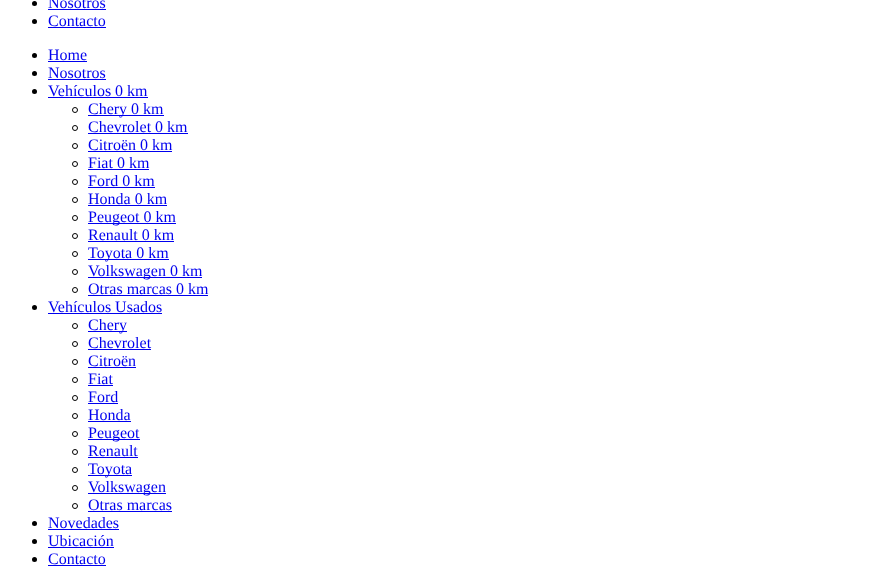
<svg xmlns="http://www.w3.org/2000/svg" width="880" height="584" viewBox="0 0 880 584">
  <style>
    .t1 { font: 16px Liberation Serif; fill: #00e; }
  </style>
  <rect width="100%" height="100%" fill="#fff"/>
  <circle cx="34.5" cy="3.5" r="2.5" fill="#000"/>
  <text x="48" y="8" class="t1">Nosotros</text>
  <rect x="48" y="9" width="58" height="1" fill="#00e"/>
  <circle cx="34.5" cy="21.5" r="2.5" fill="#000"/>
  <text x="48" y="26" class="t1">Contacto</text>
  <rect x="48" y="27" width="58" height="1" fill="#00e"/>
  <circle cx="34.5" cy="55.5" r="2.5" fill="#000"/>
  <text x="48" y="60" class="t1">Home</text>
  <rect x="48" y="61" width="39" height="1" fill="#00e"/>
  <circle cx="34.5" cy="73.5" r="2.5" fill="#000"/>
  <text x="48" y="78" class="t1">Nosotros</text>
  <rect x="48" y="79" width="58" height="1" fill="#00e"/>
  <circle cx="34.5" cy="91.5" r="2.5" fill="#000"/>
  <text x="48" y="96" class="t1">Vehículos 0 km</text>
  <rect x="48" y="97" width="100" height="1" fill="#00e"/>
  <circle cx="75" cy="110" r="2.5" fill="none" stroke="#000"/>
  <rect x="88" y="115" width="76" height="1" fill="#00e"/>
  <text x="88" y="114" class="t1">Chery 0 km</text>
  <circle cx="75" cy="128" r="2.5" fill="none" stroke="#000"/>
  <text x="88" y="132" class="t1">Chevrolet 0 km</text>
  <rect x="88" y="133" width="100" height="1" fill="#00e"/>
  <circle cx="75" cy="146" r="2.5" fill="none" stroke="#000"/>
  <text x="88" y="150" class="t1">Citroën 0 km</text>
  <rect x="88" y="151" width="84" height="1" fill="#00e"/>
  <circle cx="75" cy="164" r="2.5" fill="none" stroke="#000"/>
  <text x="88" y="168" class="t1">Fiat 0 km</text>
  <rect x="88" y="169" width="61" height="1" fill="#00e"/>
  <circle cx="75" cy="182" r="2.5" fill="none" stroke="#000"/>
  <text x="88" y="186" class="t1">Ford 0 km</text>
  <rect x="88" y="187" width="67" height="1" fill="#00e"/>
  <circle cx="75" cy="200" r="2.5" fill="none" stroke="#000"/>
  <text x="88" y="204" class="t1">Honda 0 km</text>
  <rect x="88" y="205" width="79" height="1" fill="#00e"/>
  <circle cx="75" cy="218" r="2.5" fill="none" stroke="#000"/>
  <rect x="88" y="223" width="88" height="1" fill="#00e"/>
  <text x="88" y="222" class="t1">Peugeot 0 km</text>
  <circle cx="75" cy="236" r="2.5" fill="none" stroke="#000"/>
  <text x="88" y="240" class="t1">Renault 0 km</text>
  <rect x="88" y="241" width="86" height="1" fill="#00e"/>
  <circle cx="75" cy="254" r="2.5" fill="none" stroke="#000"/>
  <rect x="88" y="259" width="81" height="1" fill="#00e"/>
  <text x="88" y="258" class="t1">Toyota 0 km</text>
  <circle cx="75" cy="272" r="2.5" fill="none" stroke="#000"/>
  <rect x="88" y="277" width="114" height="1" fill="#00e"/>
  <text x="88" y="276" class="t1">Volkswagen 0 km</text>
  <circle cx="75" cy="290" r="2.5" fill="none" stroke="#000"/>
  <text x="88" y="294" class="t1">Otras marcas 0 km</text>
  <rect x="88" y="295" width="120" height="1" fill="#00e"/>
  <circle cx="34.5" cy="307.5" r="2.5" fill="#000"/>
  <text x="48" y="312" class="t1">Vehículos Usados</text>
  <rect x="48" y="313" width="114" height="1" fill="#00e"/>
  <circle cx="75" cy="326" r="2.5" fill="none" stroke="#000"/>
  <rect x="88" y="331" width="39" height="1" fill="#00e"/>
  <text x="88" y="330" class="t1">Chery</text>
  <circle cx="75" cy="344" r="2.5" fill="none" stroke="#000"/>
  <text x="88" y="348" class="t1">Chevrolet</text>
  <rect x="88" y="349" width="63" height="1" fill="#00e"/>
  <circle cx="75" cy="362" r="2.5" fill="none" stroke="#000"/>
  <text x="88" y="366" class="t1">Citroën</text>
  <rect x="88" y="367" width="48" height="1" fill="#00e"/>
  <circle cx="75" cy="380" r="2.5" fill="none" stroke="#000"/>
  <text x="88" y="384" class="t1">Fiat</text>
  <rect x="88" y="385" width="25" height="1" fill="#00e"/>
  <circle cx="75" cy="398" r="2.5" fill="none" stroke="#000"/>
  <text x="88" y="402" class="t1">Ford</text>
  <rect x="88" y="403" width="30" height="1" fill="#00e"/>
  <circle cx="75" cy="416" r="2.5" fill="none" stroke="#000"/>
  <text x="88" y="420" class="t1">Honda</text>
  <rect x="88" y="421" width="43" height="1" fill="#00e"/>
  <circle cx="75" cy="434" r="2.5" fill="none" stroke="#000"/>
  <rect x="88" y="439" width="52" height="1" fill="#00e"/>
  <text x="88" y="438" class="t1">Peugeot</text>
  <circle cx="75" cy="452" r="2.5" fill="none" stroke="#000"/>
  <text x="88" y="456" class="t1">Renault</text>
  <rect x="88" y="457" width="50" height="1" fill="#00e"/>
  <circle cx="75" cy="470" r="2.5" fill="none" stroke="#000"/>
  <rect x="88" y="475" width="44" height="1" fill="#00e"/>
  <text x="88" y="474" class="t1">Toyota</text>
  <circle cx="75" cy="488" r="2.5" fill="none" stroke="#000"/>
  <rect x="88" y="493" width="78" height="1" fill="#00e"/>
  <text x="88" y="492" class="t1">Volkswagen</text>
  <circle cx="75" cy="506" r="2.5" fill="none" stroke="#000"/>
  <text x="88" y="510" class="t1">Otras marcas</text>
  <rect x="88" y="511" width="84" height="1" fill="#00e"/>
  <circle cx="34.5" cy="523.5" r="2.5" fill="#000"/>
  <text x="48" y="528" class="t1">Novedades</text>
  <rect x="48" y="529" width="71" height="1" fill="#00e"/>
  <circle cx="34.5" cy="541.5" r="2.5" fill="#000"/>
  <text x="48" y="546" class="t1">Ubicación</text>
  <rect x="48" y="547" width="66" height="1" fill="#00e"/>
  <circle cx="34.5" cy="559.5" r="2.5" fill="#000"/>
  <text x="48" y="564" class="t1">Contacto</text>
  <rect x="48" y="565" width="58" height="1" fill="#00e"/>
</svg>
